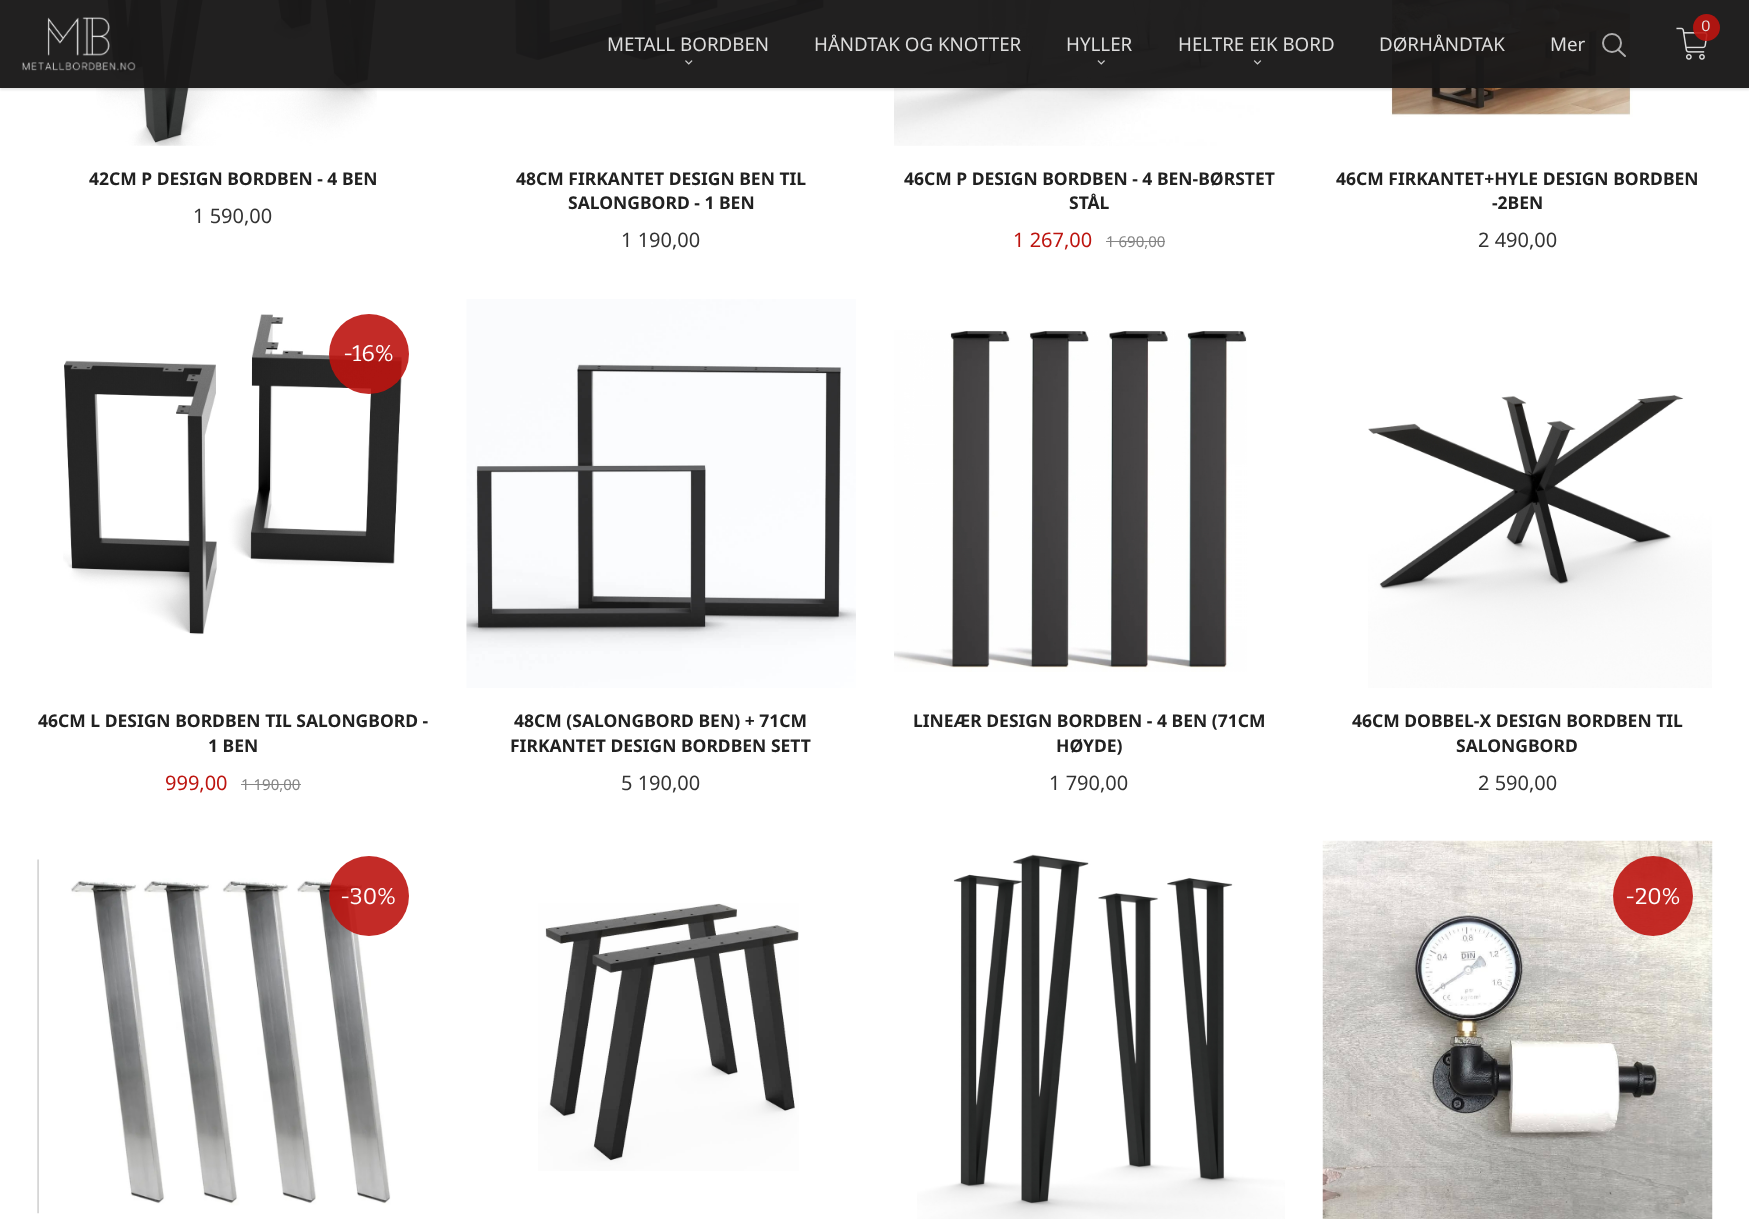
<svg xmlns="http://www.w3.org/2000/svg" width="1749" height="1219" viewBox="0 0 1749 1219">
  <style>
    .t1 { font: 15px Bitter; fill: #e9e9e9; }
    .t2 { font: 18.75px Noto Sans; fill: #ddd; }
    .t3 { font: bold 17.5px Noto Sans; fill: #212121; }
    .t4 { font: 20px Noto Sans; fill: #333; }
    .t5 { font: 20px Noto Sans; fill: #bd140f; }
    .t6 { font: 15px Noto Sans; fill: #858585; }
    .t7 { font: 22.5px Bitter; fill: #fff; }
  </style>
  <defs>
    <clipPath id="clip1"><path d="M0 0H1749V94H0ZM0 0H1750V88H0Z" clip-rule="evenodd"/></clipPath>
  </defs>
  <rect width="100%" height="100%" fill="#fff"/>
  <image x="96" y="0" width="281" height="146" href="images/6.png"/>
  <image x="513" y="0" width="312" height="62" href="images/7.png"/>
  <image x="894" y="0" width="391" height="146" href="images/8.png"/>
  <image x="1390" y="0" width="243" height="117" href="images/9.png"/>
  <g clip-path="url(#clip1)">
    <rect x="0" y="3" width="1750" height="87" fill="#0000001a" filter="blur(1px)"/>
  </g>
  <rect x="0" y="0" width="1749" height="88" fill="#1a1919f7"/>
  <image x="1676" y="27" width="32" height="33" href="images/1.png"/>
  <circle cx="1706.5" cy="27.5" r="13.5" fill="#bd140fe6"/>
  <text x="1701" y="31" class="t1">0</text>
  <image x="22" y="17" width="114" height="54" href="images/2.png"/>
  <text x="607" y="51" class="t2">METALL BORDBEN</text>
  <image x="685" y="60" width="8" height="5" href="images/3.png"/>
  <text x="814" y="51" class="t2">HÅNDTAK OG KNOTTER</text>
  <text x="1066" y="51" class="t2">HYLLER</text>
  <image x="1097" y="60" width="8" height="5" href="images/4.png"/>
  <text x="1178" y="51" class="t2">HELTRE EIK BORD</text>
  <image x="1253" y="60" width="9" height="5" href="images/5.png"/>
  <text x="1379" y="51" class="t2">DØRHÅNDTAK</text>
  <text x="1550" y="51" class="t2">Mer</text>
  <circle cx="1612" cy="43" r="9" fill="none" stroke="#aeadad" stroke-width="2"/>
  <path d="M1625 56L1618 49.5" fill="none" stroke="#aeadad" stroke-width="2" stroke-linecap="round"/>
  <text x="89" y="185" class="t3">42CM P DESIGN BORDBEN - 4 BEN</text>
  <text x="193" y="223" class="t4">1 590,00</text>
  <text x="516" y="185" class="t3">48CM FIRKANTET DESIGN BEN TIL</text>
  <text x="568" y="209" class="t3">SALONGBORD - 1 BEN</text>
  <text x="621" y="247" class="t4">1 190,00</text>
  <text x="904" y="185" class="t3">46CM P DESIGN BORDBEN - 4 BEN-BØRSTET</text>
  <text x="1069" y="209" class="t3">STÅL</text>
  <text x="1013" y="247" class="t5">1 267,00</text>
  <text x="1106" y="247" class="t6">1 690,00</text>
  <rect x="1106" y="241" width="59" height="1" fill="#858585"/>
  <text x="1336" y="185" class="t3">46CM FIRKANTET+HYLE DESIGN BORDBEN</text>
  <text x="1492" y="209" class="t3">-2BEN</text>
  <text x="1478" y="247" class="t4">2 490,00</text>
  <image x="63" y="314" width="340" height="321" href="images/10.png"/>
  <circle cx="369" cy="354" r="40" fill="#bd140fe6"/>
  <text x="343" y="361" class="t7">-16%</text>
  <text x="165" y="790" class="t5">999,00</text>
  <text x="241" y="790" class="t6">1 190,00</text>
  <rect x="241" y="784" width="60" height="1" fill="#858585"/>
  <text x="38" y="727" class="t3">46CM L DESIGN BORDBEN TIL SALONGBORD -</text>
  <text x="208" y="752" class="t3">1 BEN</text>
  <image x="466" y="299" width="390" height="389" href="images/11.png"/>
  <text x="514" y="727" class="t3">48CM (SALONGBORD BEN) + 71CM</text>
  <text x="510" y="752" class="t3">FIRKANTET DESIGN BORDBEN SETT</text>
  <text x="621" y="790" class="t4">5 190,00</text>
  <image x="894" y="330" width="353" height="342" href="images/12.png"/>
  <text x="913" y="727" class="t3">LINEÆR DESIGN BORDBEN - 4 BEN (71CM</text>
  <text x="1056" y="752" class="t3">HØYDE)</text>
  <text x="1049" y="790" class="t4">1 790,00</text>
  <image x="1368" y="395" width="344" height="293" href="images/13.png"/>
  <text x="1352" y="727" class="t3">46CM DOBBEL-X DESIGN BORDBEN TIL</text>
  <text x="1456" y="752" class="t3">SALONGBORD</text>
  <text x="1478" y="790" class="t4">2 590,00</text>
  <image x="37" y="859" width="354" height="355" href="images/14.png"/>
  <circle cx="369" cy="896" r="40" fill="#bd140fe6"/>
  <text x="340" y="904" class="t7">-30%</text>
  <image x="917" y="854" width="368" height="365" href="images/15.png"/>
  <image x="1322" y="840" width="391" height="379" href="images/16.png"/>
  <circle cx="1653" cy="896" r="40" fill="#bd140fe6"/>
  <text x="1625" y="904" class="t7">-20%</text>
  <image x="538" y="903" width="261" height="268" href="images/17.png"/>
</svg>
